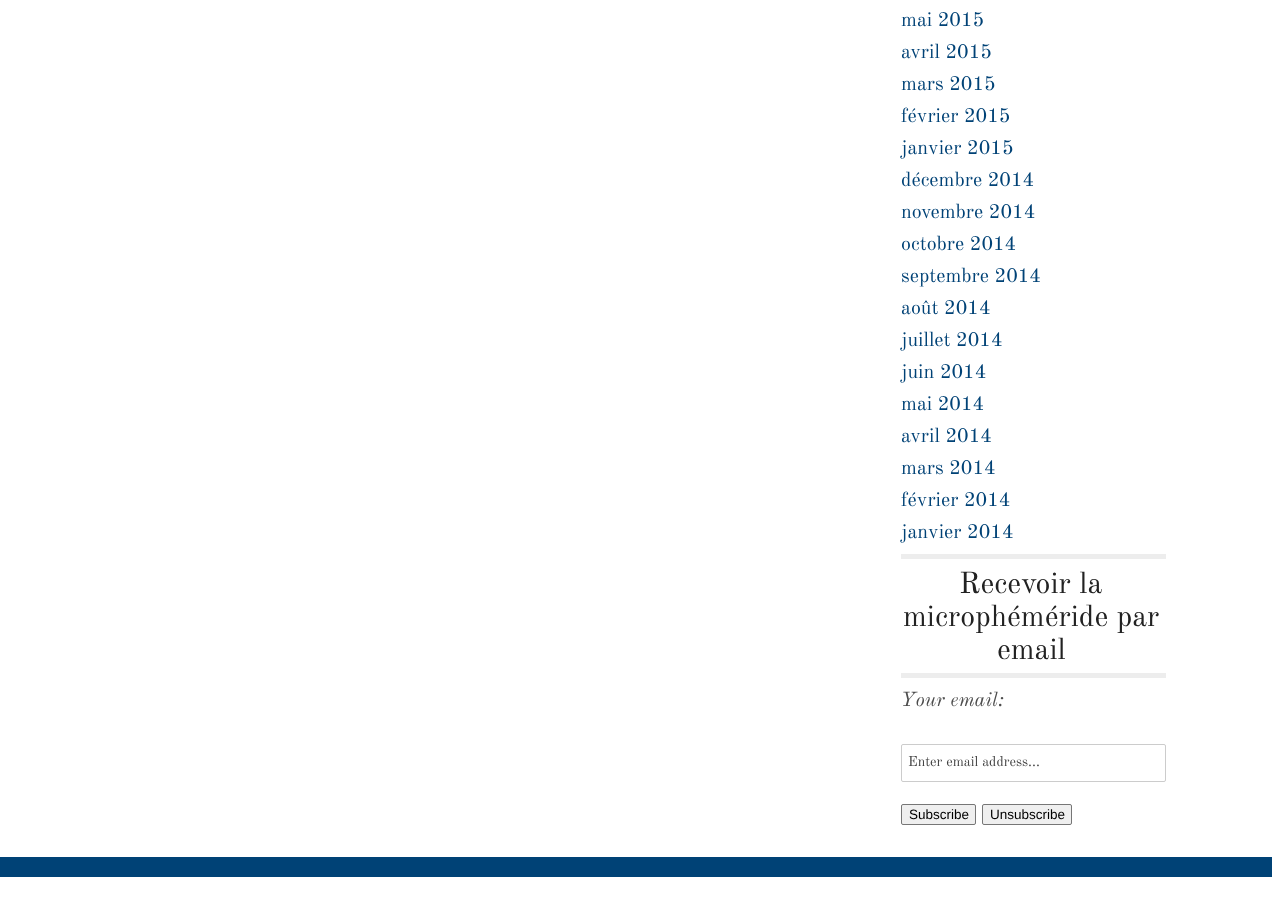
<svg xmlns="http://www.w3.org/2000/svg" width="1272" height="903" viewBox="0 0 1272 903">
  <style>
    .t1 { font: 20px Old Standard TT; fill: #004276; }
    .t2 { font: 30px Old Standard TT; fill: #222; }
    .t3 { font: italic 20px Old Standard TT; fill: #4d4d4d; }
    .t4 { font: 14px Old Standard TT; fill: #404040; }
    .t5 { font: 13.5px Liberation Sans; fill: #000; }
  </style>
  <rect width="100%" height="100%" fill="#fff"/>
  <rect x="0" y="857" width="1272" height="20" fill="#004276"/>
  <rect x="901" y="554" width="265" height="5" fill="#ededed"/>
  <text x="901" y="26" class="t1">mai 2015</text>
  <text x="901" y="58" class="t1">avril 2015</text>
  <text x="901" y="90" class="t1">mars 2015</text>
  <text x="901" y="122" class="t1">février 2015</text>
  <text x="901" y="154" class="t1">janvier 2015</text>
  <text x="901" y="186" class="t1">décembre 2014</text>
  <text x="901" y="218" class="t1">novembre 2014</text>
  <text x="901" y="250" class="t1">octobre 2014</text>
  <text x="901" y="282" class="t1">septembre 2014</text>
  <text x="901" y="314" class="t1">août 2014</text>
  <text x="901" y="346" class="t1">juillet 2014</text>
  <text x="901" y="378" class="t1">juin 2014</text>
  <text x="901" y="410" class="t1">mai 2014</text>
  <text x="901" y="442" class="t1">avril 2014</text>
  <text x="901" y="474" class="t1">mars 2014</text>
  <text x="901" y="506" class="t1">février 2014</text>
  <text x="901" y="538" class="t1">janvier 2014</text>
  <rect x="901" y="673" width="265" height="5" fill="#ededed"/>
  <text x="959" y="593" class="t2">Recevoir la</text>
  <text x="903" y="626" class="t2">microphéméride par</text>
  <text x="997" y="659" class="t2">email</text>
  <text x="901" y="706" class="t3">Your email:</text>
  <rect x="901.5" y="744.5" width="264" height="37" rx="1.5" fill="none" stroke="#ccc"/>
  <text x="908" y="766" class="t4">Enter email address...</text>
  <rect x="901.5" y="804.5" width="74" height="20" rx="1.5" fill="#efefef" stroke="#767676"/>
  <text x="909" y="819" class="t5">Subscribe</text>
  <rect x="982.5" y="804.5" width="89" height="20" rx="1.5" fill="#efefef" stroke="#767676"/>
  <text x="990" y="819" class="t5">Unsubscribe</text>
</svg>
